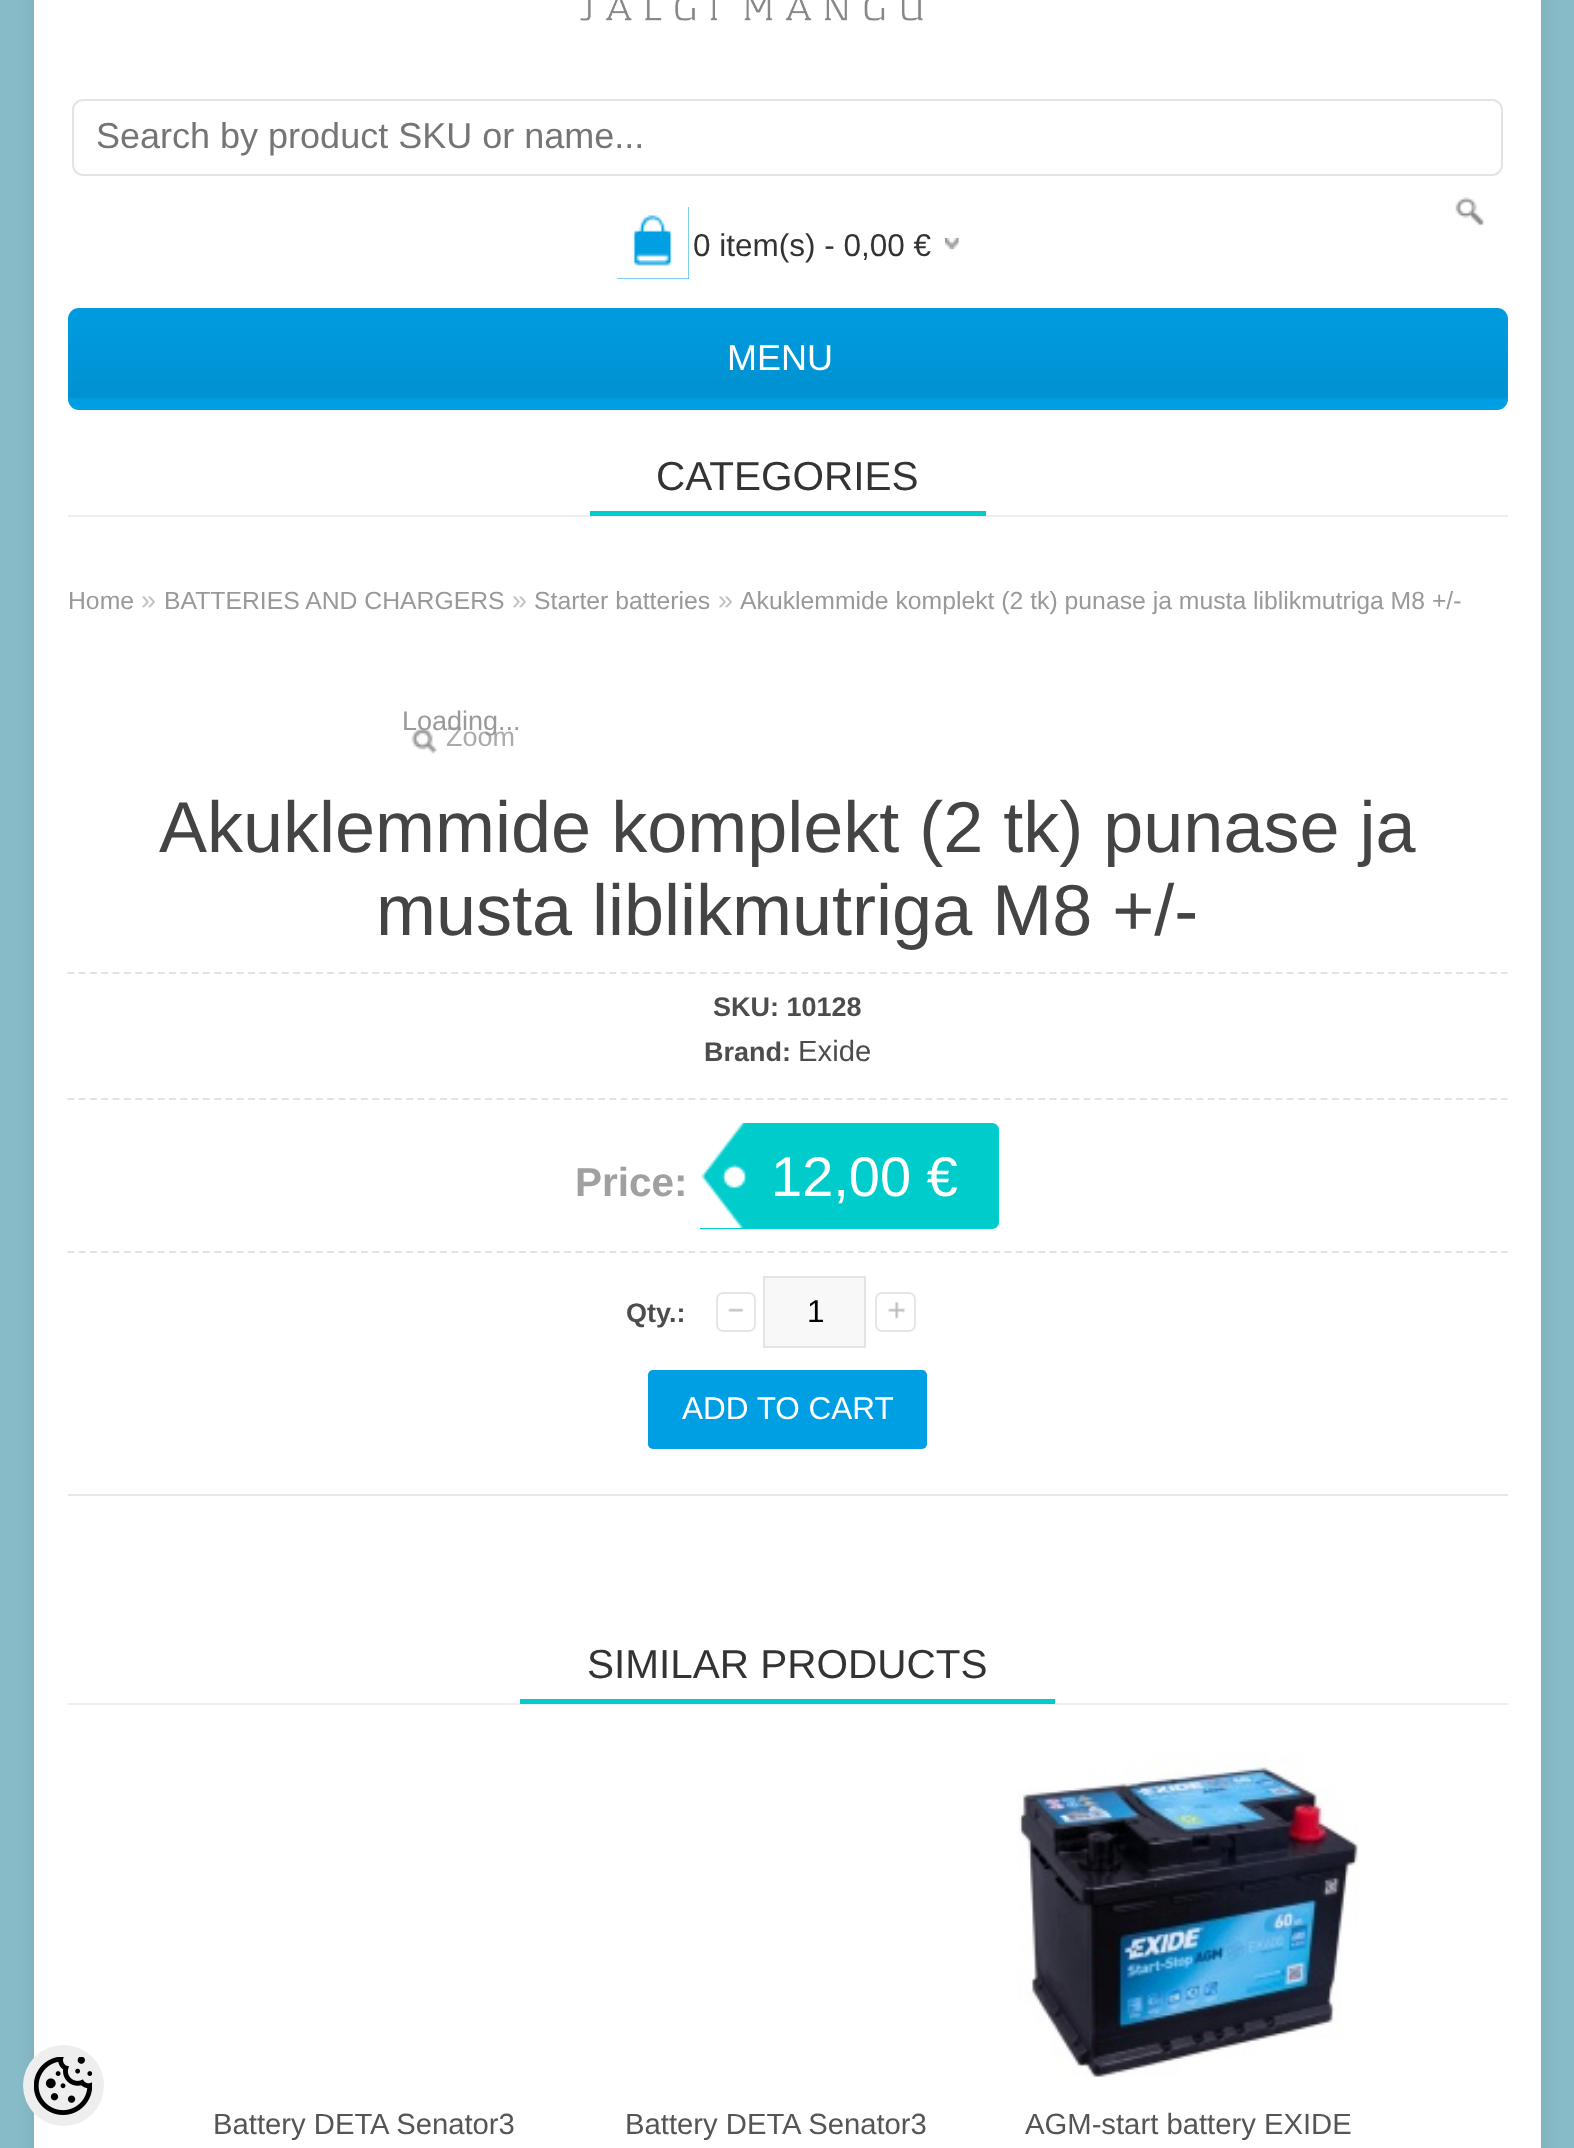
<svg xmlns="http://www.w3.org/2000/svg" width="1574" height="2148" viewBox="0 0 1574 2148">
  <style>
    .t1 { font: 36px Liberation Sans; fill: #757575; }
    .t2 { font: 31.5px Liberation Sans; fill: #333; }
    .t3 { font: 36px Liberation Sans; fill: #fff; }
    .t4 { font: 40.5px Liberation Sans; fill: #333; }
    .t5 { font: 24.75px Liberation Sans; fill: #999; }
    .t6 { font: 27px Liberation Sans; fill: #c2c2c2; }
    .t7 { font: 27px Liberation Sans; fill: #ababab; }
    .t8 { font: 27px Liberation Sans; fill: #999; }
    .t9 { font: 72px Liberation Sans; fill: #444; }
    .t10 { font: bold 27px Liberation Sans; fill: #4d4d4d; }
    .t11 { font: 29.25px Liberation Sans; fill: #4d4d4d; }
    .t12 { font: bold 40.5px Liberation Sans; fill: #a0a0a0; }
    .t13 { font: 56px Liberation Sans; fill: #fff; }
    .t14 { font: 31.5px Liberation Sans; fill: #000; }
    .t15 { font: 31.5px Liberation Sans; fill: #fff; }
    .t16 { font: 29.25px Liberation Sans; fill: #555; }
  </style>
  <rect width="100%" height="100%" fill="#87bbc7"/>
  <rect x="34" y="-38" width="1507" height="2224" rx="11" fill="#00000014" filter="blur(9px)"/>
  <rect x="34" y="0" width="1507" height="2148" fill="#fff"/>
  <circle cx="63.5" cy="2085.5" r="40.5" fill="#eee"/>
  <image x="34" y="2057" width="58" height="58" href="images/1.png"/>
  <image x="580" y="0" width="343" height="21" href="images/2.png"/>
  <rect x="73" y="100" width="1429" height="75" rx="10" fill="none" stroke="#e4e4e4" stroke-width="2"/>
  <text x="96" y="148" class="t1">Search by product SKU or name...</text>
  <image x="1455" y="197" width="30" height="29" href="images/3.png"/>
  <rect x="617" y="207" width="72" height="72" fill="#009ee3"/>
  <image x="617" y="207" width="72" height="72" href="images/4.png"/>
  <image x="945" y="238" width="14" height="12" href="images/5.png"/>
  <text x="693" y="256" class="t2">0 item(s) - 0,00 €</text>
  <rect x="68" y="308" width="1440" height="102" rx="11" fill="#009ee3"/>
  <image x="68" y="308" width="1439" height="91" href="images/6.png"/>
  <text x="727" y="370" class="t3">MENU</text>
  <rect x="68" y="515" width="1440" height="2" fill="#eee"/>
  <rect x="590" y="511" width="396" height="5" fill="#0cc"/>
  <text x="656" y="490" class="t4">CATEGORIES</text>
  <text x="68" y="609" class="t5">Home</text>
  <text x="141" y="609" class="t6">»</text>
  <text x="164" y="609" class="t5">BATTERIES AND CHARGERS</text>
  <text x="512" y="609" class="t6">»</text>
  <text x="534" y="609" class="t5">Starter batteries</text>
  <text x="718" y="609" class="t6">»</text>
  <text x="740" y="609" class="t5">Akuklemmide komplekt (2 tk) punase ja musta liblikmutriga M8 +/-</text>
  <image x="411" y="728" width="26" height="26" href="images/7.png"/>
  <text x="446" y="746" class="t7">Zoom</text>
  <text x="402" y="730" class="t8">Loading...</text>
  <text x="159" y="852" class="t9">Akuklemmide komplekt (2 tk) punase ja</text>
  <text x="376" y="935" class="t9">musta liblikmutriga M8 +/-</text>
  <path d="M67.5 973H1507.5" fill="none" stroke="#e2e2e2" stroke-width="2.2" stroke-dasharray="6.75 4.54"/>
  <path d="M67.5 1099H1507.5" fill="none" stroke="#e2e2e2" stroke-width="2.2" stroke-dasharray="6.75 4.54"/>
  <text x="713" y="1016" class="t10">SKU: 10128</text>
  <text x="704" y="1061" class="t10">Brand:</text>
  <text x="798" y="1061" class="t11">Exide</text>
  <path d="M67.5 1252H1507.5" fill="none" stroke="#e2e2e2" stroke-width="2.2" stroke-dasharray="6.75 4.54"/>
  <text x="575" y="1196" class="t12">Price:</text>
  <path d="M700 1123H992C996 1123 999 1126 999 1130V1222C999 1226 996 1229 992 1229H700Z" fill="#0cc"/>
  <image x="700" y="1123" width="47" height="105" href="images/8.png"/>
  <text x="771" y="1196" class="t13">12,00 €</text>
  <rect x="68" y="1494" width="1440" height="2" fill="#e7e7e7"/>
  <text x="626" y="1322" class="t10">Qty.:</text>
  <image x="728" y="1308" width="17" height="4" href="images/9.png"/>
  <rect x="717" y="1293" width="38" height="38" rx="6" fill="none" stroke="#e6e6e6" stroke-width="2"/>
  <rect x="764" y="1277" width="101" height="70" fill="#f8f8f8" stroke="#e4e4e4" stroke-width="2"/>
  <text x="807" y="1322" class="t14">1</text>
  <image x="888" y="1301" width="18" height="18" href="images/10.png"/>
  <rect x="876" y="1293" width="39" height="38" rx="6" fill="none" stroke="#e6e6e6" stroke-width="2"/>
  <rect x="648" y="1370" width="279" height="79" rx="5" fill="#009ee3"/>
  <text x="682" y="1419" class="t15">ADD TO CART</text>
  <rect x="68" y="1703" width="1440" height="2" fill="#eee"/>
  <rect x="520" y="1699" width="535" height="5" fill="#0cc"/>
  <text x="587" y="1678" class="t4">SIMILAR PRODUCTS</text>
  <text x="213" y="2134" class="t16">Battery DETA Senator3</text>
  <text x="625" y="2134" class="t16">Battery DETA Senator3</text>
  <image x="1017" y="1753" width="342" height="324" href="images/11.png"/>
  <text x="1025" y="2134" class="t16">AGM-start battery EXIDE</text>
</svg>
